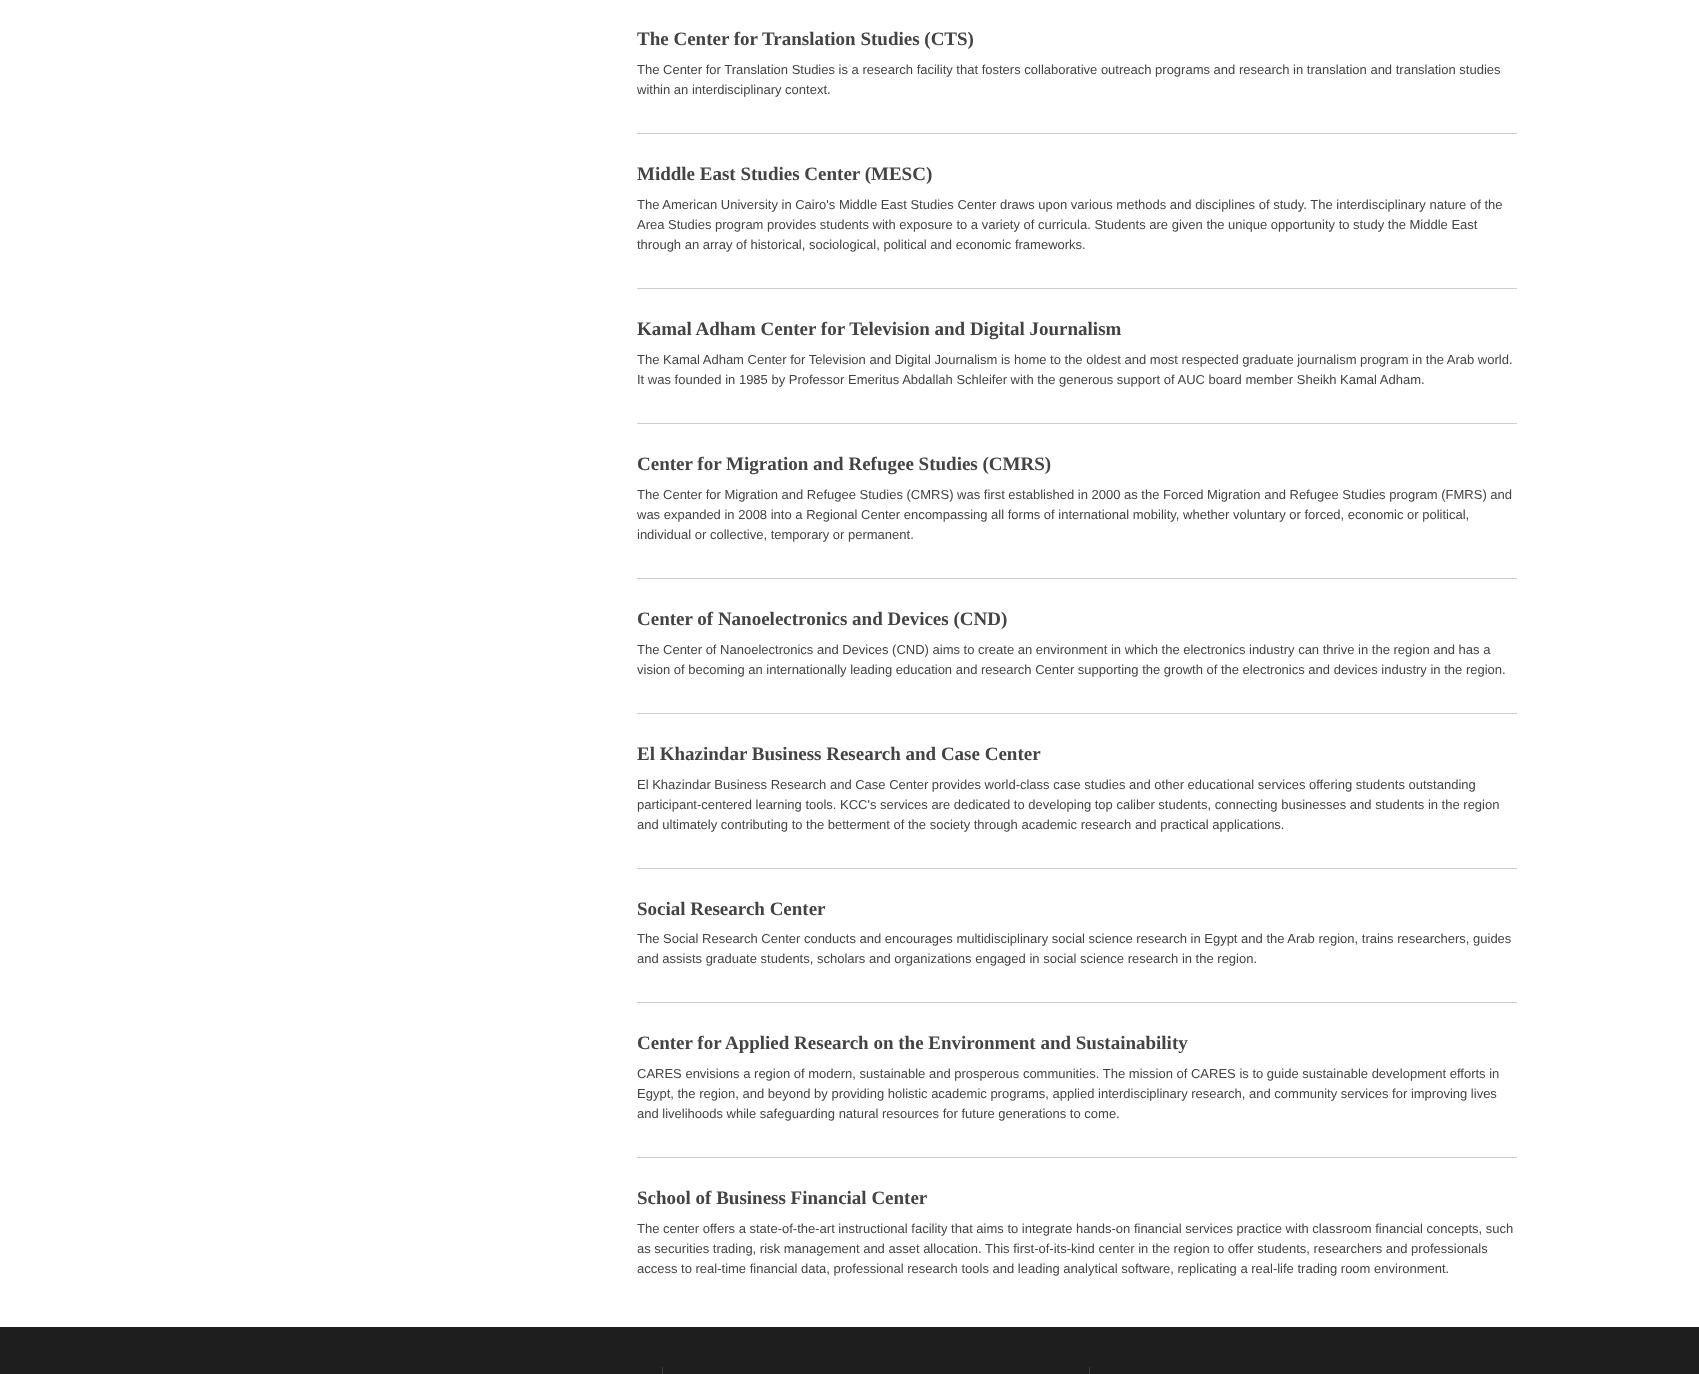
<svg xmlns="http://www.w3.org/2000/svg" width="1699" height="1374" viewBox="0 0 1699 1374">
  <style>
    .t1 { font: bold 19px Liberation Serif; fill: #444; }
    .t2 { font: 13px Liberation Sans; fill: #444; }
  </style>
  <rect width="100%" height="100%" fill="#fff"/>
  <rect x="637" y="133" width="880" height="1" fill="#ccc"/>
  <text x="637" y="45" class="t1">The Center for Translation Studies (CTS)</text>
  <text x="637" y="74" class="t2">The Center for Translation Studies is a research facility that fosters collaborative outreach programs and research in translation and translation studies</text>
  <text x="637" y="94" class="t2">within an interdisciplinary context.</text>
  <rect x="637" y="288" width="880" height="1" fill="#ccc"/>
  <text x="637" y="180" class="t1">Middle East Studies Center (MESC)</text>
  <text x="637" y="209" class="t2">The American University in Cairo's Middle East Studies Center draws upon various methods and disciplines of study. The interdisciplinary nature of the</text>
  <text x="637" y="229" class="t2">Area Studies program provides students with exposure to a variety of curricula. Students are given the unique opportunity to study the Middle East</text>
  <text x="637" y="249" class="t2">through an array of historical, sociological, political and economic frameworks.</text>
  <rect x="637" y="423" width="880" height="1" fill="#ccc"/>
  <text x="637" y="335" class="t1">Kamal Adham Center for Television and Digital Journalism</text>
  <text x="637" y="364" class="t2">The Kamal Adham Center for Television and Digital Journalism is home to the oldest and most respected graduate journalism program in the Arab world.</text>
  <text x="637" y="384" class="t2">It was founded in 1985 by Professor Emeritus Abdallah Schleifer with the generous support of AUC board member Sheikh Kamal Adham.</text>
  <rect x="637" y="578" width="880" height="1" fill="#ccc"/>
  <text x="637" y="470" class="t1">Center for Migration and Refugee Studies (CMRS)</text>
  <text x="637" y="499" class="t2">The Center for Migration and Refugee Studies (CMRS) was first established in 2000 as the Forced Migration and Refugee Studies program (FMRS) and</text>
  <text x="637" y="519" class="t2">was expanded in 2008 into a Regional Center encompassing all forms of international mobility, whether voluntary or forced, economic or political,</text>
  <text x="637" y="539" class="t2">individual or collective, temporary or permanent.</text>
  <rect x="637" y="713" width="880" height="1" fill="#ccc"/>
  <text x="637" y="625" class="t1">Center of Nanoelectronics and Devices (CND)</text>
  <text x="637" y="654" class="t2">The Center of Nanoelectronics and Devices (CND) aims to create an environment in which the electronics industry can thrive in the region and has a</text>
  <text x="637" y="674" class="t2">vision of becoming an internationally leading education and research Center supporting the growth of the electronics and devices industry in the region.</text>
  <rect x="637" y="868" width="880" height="1" fill="#ccc"/>
  <text x="637" y="760" class="t1">El Khazindar Business Research and Case Center</text>
  <text x="637" y="789" class="t2">El Khazindar Business Research and Case Center provides world-class case studies and other educational services offering students outstanding</text>
  <text x="637" y="809" class="t2">participant-centered learning tools. KCC's services are dedicated to developing top caliber students, connecting businesses and students in the region</text>
  <text x="637" y="829" class="t2">and ultimately contributing to the betterment of the society through academic research and practical applications.</text>
  <rect x="637" y="1002" width="880" height="1" fill="#ccc"/>
  <text x="637" y="915" class="t1">Social Research Center</text>
  <text x="637" y="943" class="t2">The Social Research Center conducts and encourages multidisciplinary social science research in Egypt and the Arab region, trains researchers, guides</text>
  <text x="637" y="963" class="t2">and assists graduate students, scholars and organizations engaged in social science research in the region.</text>
  <rect x="637" y="1157" width="880" height="1" fill="#ccc"/>
  <text x="637" y="1049" class="t1">Center for Applied Research on the Environment and Sustainability</text>
  <text x="637" y="1078" class="t2">CARES envisions a region of modern, sustainable and prosperous communities. The mission of CARES is to guide sustainable development efforts in</text>
  <text x="637" y="1098" class="t2">Egypt, the region, and beyond by providing holistic academic programs, applied interdisciplinary research, and community services for improving lives</text>
  <text x="637" y="1118" class="t2">and livelihoods while safeguarding natural resources for future generations to come.</text>
  <text x="637" y="1204" class="t1">School of Business Financial Center</text>
  <text x="637" y="1233" class="t2">The center offers a state-of-the-art instructional facility that aims to integrate hands-on financial services practice with classroom financial concepts, such</text>
  <text x="637" y="1253" class="t2">as securities trading, risk management and asset allocation. This first-of-its-kind center in the region to offer students, researchers and professionals</text>
  <text x="637" y="1273" class="t2">access to real-time financial data, professional research tools and leading analytical software, replicating a real-life trading room environment.</text>
  <rect x="0" y="1327" width="1699" height="47" fill="#1e1e1e"/>
  <rect x="1089" y="1367" width="1" height="7" fill="#3a3a3a"/>
  <rect x="662" y="1367" width="1" height="7" fill="#3a3a3a"/>
</svg>
